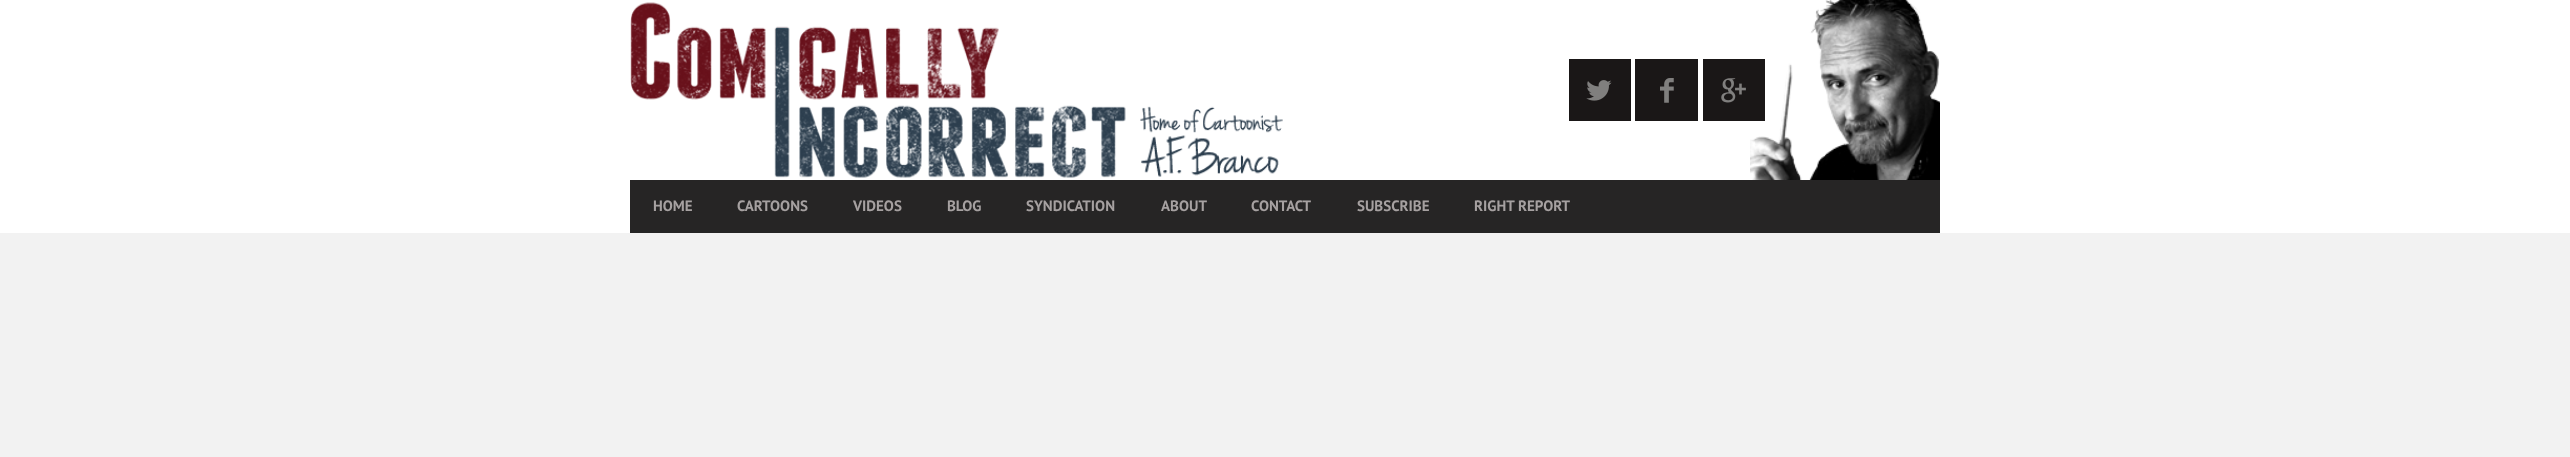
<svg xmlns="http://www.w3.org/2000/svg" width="2570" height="457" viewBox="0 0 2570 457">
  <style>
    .t1 { font: bold 15px PT Sans; fill: #a6a1a1; }
  </style>
  <rect width="100%" height="100%" fill="#fff"/>
  <image x="1750" y="0" width="190" height="180" href="images/1.png"/>
  <image x="630" y="2" width="653" height="176" href="images/2.png"/>
  <rect x="1569" y="59" width="62" height="62" fill="#1a1717"/>
  <image x="1586" y="80" width="26" height="21" href="images/3.png"/>
  <rect x="1635" y="59" width="63" height="62" fill="#1a1717"/>
  <image x="1660" y="78" width="14" height="25" href="images/4.png"/>
  <rect x="1703" y="59" width="62" height="62" fill="#1a1717"/>
  <image x="1721" y="78" width="25" height="25" href="images/5.png"/>
  <rect x="630" y="180" width="1310" height="53" fill="#262525"/>
  <text x="653" y="211" class="t1">HOME</text>
  <text x="737" y="211" class="t1">CARTOONS</text>
  <text x="853" y="211" class="t1">VIDEOS</text>
  <text x="947" y="211" class="t1">BLOG</text>
  <text x="1026" y="211" class="t1">SYNDICATION</text>
  <text x="1161" y="211" class="t1">ABOUT</text>
  <text x="1251" y="211" class="t1">CONTACT</text>
  <text x="1357" y="211" class="t1">SUBSCRIBE</text>
  <text x="1474" y="211" class="t1">RIGHT REPORT</text>
  <rect x="0" y="233" width="2570" height="224" fill="#f2f2f2"/>
</svg>
